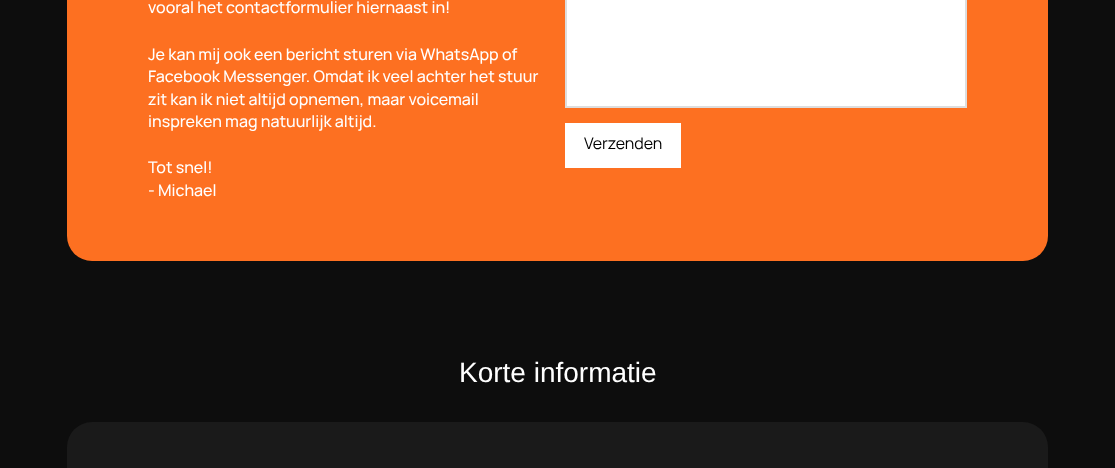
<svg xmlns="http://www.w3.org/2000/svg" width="1115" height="468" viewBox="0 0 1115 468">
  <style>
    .t1 { font: 500 16px Manrope; fill: #fff; }
    .t2 { font: 16px Manrope; fill: #000; }
    .t3 { font: 28px Liberation Sans; fill: #fff; }
  </style>
  <rect width="100%" height="100%" fill="#0d0d0d"/>
  <rect x="67" y="-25" width="981" height="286" rx="25" fill="#fd7021"/>
  <text x="148" y="13" class="t1">vooral het contactformulier hiernaast in!</text>
  <text x="148" y="60" class="t1">Je kan mij ook een bericht sturen via WhatsApp of</text>
  <text x="148" y="82" class="t1">Facebook Messenger. Omdat ik veel achter het stuur</text>
  <text x="148" y="105" class="t1">zit kan ik niet altijd opnemen, maar voicemail</text>
  <text x="148" y="127" class="t1">inspreken mag natuurlijk altijd.</text>
  <text x="148" y="173" class="t1">Tot snel!</text>
  <text x="148" y="196" class="t1">- Michael</text>
  <rect x="566" y="-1" width="400" height="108" fill="#fff" stroke="#ddd" stroke-width="2"/>
  <rect x="565" y="123" width="116" height="45" fill="#fff"/>
  <text x="584" y="149" class="t2">Verzenden</text>
  <text x="459" y="382" class="t3">Korte informatie</text>
  <rect x="67" y="422" width="981" height="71" rx="25" fill="#1a1a1a"/>
</svg>
